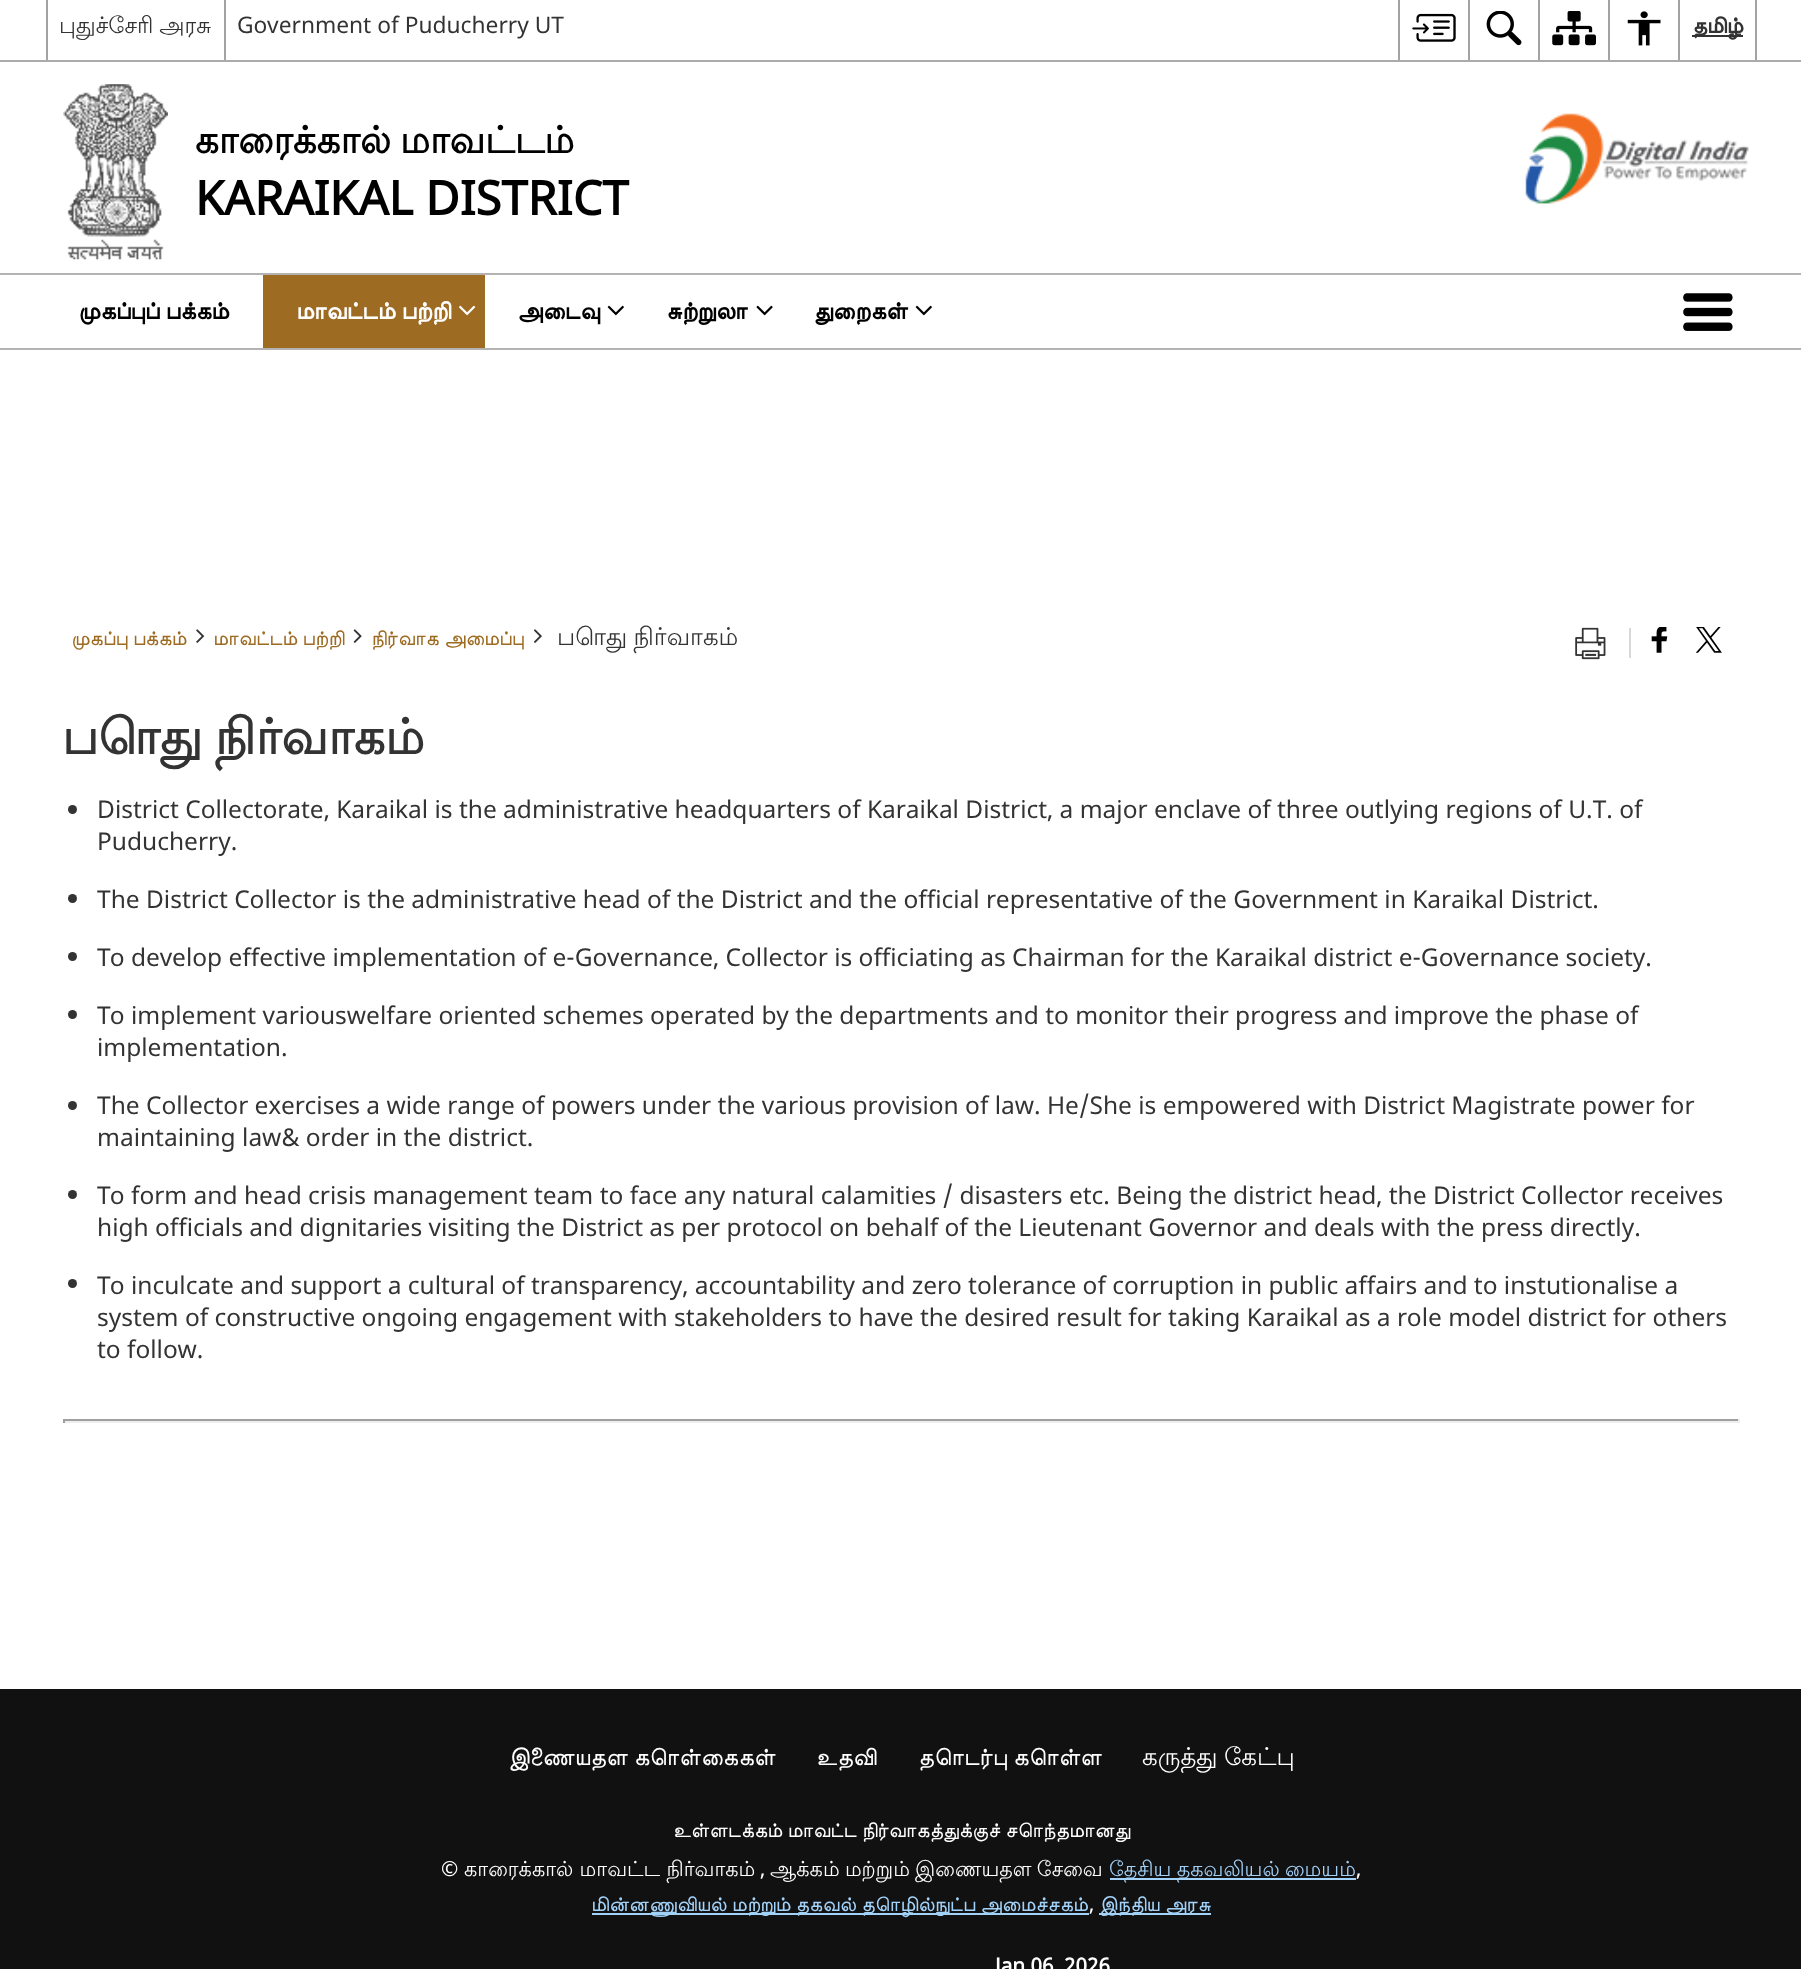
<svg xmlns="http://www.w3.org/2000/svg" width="1801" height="1969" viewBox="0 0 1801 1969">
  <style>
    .t1 { font: 22.75px Lohit Tamil; fill: #333; }
    .t2 { font: 22.75px Noto Sans; fill: #333; }
    .t3 { font: bold 22.75px FreeSans; fill: #333; }
    .t4 { font: bold 37.25px Lohit Tamil; fill: #000; }
    .t5 { font: bold 47px Noto Sans; fill: #000; }
    .t6 { font: bold 24.5px FreeSans; fill: #000; }
    .t7 { font: bold 24.5px FreeSans; fill: #fff; }
    .t8 { font: 20.8px FreeSans; fill: #9e6b22; }
    .t9 { font: 24.5px Lohit Tamil; fill: #333; }
    .t10 { font: bold 49px Lohit Tamil; fill: #333; }
    .t11 { font: 24.5px Noto Sans; fill: #333; }
    .t12 { font: 24.5px FreeSans; fill: #fff; }
    .t13 { font: 24.5px Lohit Tamil; fill: #fff; }
    .t14 { font: 20.8px FreeSans; fill: #fff; }
    .t15 { font: 20.8px Noto Sans; fill: #fff; }
    .t16 { font: 20.8px Lohit Tamil; fill: #fff; }
    .t17 { font: 20.8px Lohit Tamil; fill: #a3d2f9; }
    .t18 { font: 20.8px FreeSans; fill: #a3d2f9; }
    .t19 { font: bold 20.8px Noto Sans; fill: #fff; }
  </style>
  <rect width="100%" height="100%" fill="#fff"/>
  <rect x="0" y="60" width="1801" height="2" fill="#ababab"/>
  <rect x="46" y="0" width="2" height="60" fill="#a3a3a3"/>
  <text x="59" y="33" word-spacing="-1" class="t1">புதுச்சேரி அரசு</text>
  <rect x="224" y="0" width="2" height="60" fill="#a3a3a3"/>
  <text x="237" y="33" class="t2">Government of Puducherry UT</text>
  <rect x="1398" y="0" width="2" height="60" fill="#a3a3a3"/>
  <image x="1412" y="13" width="44" height="29" href="images/1.png"/>
  <rect x="1468" y="0" width="2" height="60" fill="#a3a3a3"/>
  <image x="1486" y="11" width="36" height="35" href="images/2.png"/>
  <rect x="1538" y="0" width="2" height="60" fill="#a3a3a3"/>
  <image x="1552" y="11" width="44" height="35" href="images/3.png"/>
  <rect x="1608" y="0" width="2" height="60" fill="#a3a3a3"/>
  <image x="1627" y="11" width="34" height="35" href="images/4.png"/>
  <rect x="1755" y="0" width="2" height="60" fill="#a3a3a3"/>
  <rect x="1678" y="0" width="2" height="60" fill="#a3a3a3"/>
  <rect x="1692" y="35" width="51" height="2" fill="#333"/>
  <text x="1692" y="33" class="t3">தமிழ்</text>
  <image x="63" y="84" width="105" height="176" href="images/5.png"/>
  <text x="195" y="153" word-spacing="-2" class="t4">காரைக்கால் மாவட்டம்</text>
  <text x="195" y="215" class="t5">KARAIKAL DISTRICT</text>
  <image x="1525" y="113" width="224" height="91" href="images/6.png"/>
  <rect x="0" y="273" width="1801" height="2" fill="#b3b3b3"/>
  <rect x="0" y="348" width="1801" height="2" fill="#b3b3b3"/>
  <text x="78" y="319" class="t6">முகப்புப் பக்கம்</text>
  <rect x="263" y="275" width="222" height="73" fill="#9e6b22"/>
  <text x="296" y="319" class="t7">மாவட்டம் பற்றி</text>
  <image x="459" y="305" width="17" height="11" href="images/7.png"/>
  <text x="517" y="319" class="t6">அடைவு</text>
  <image x="607" y="305" width="17" height="11" href="images/8.png"/>
  <text x="666" y="319" class="t6">சுற்றுலா</text>
  <image x="756" y="305" width="17" height="11" href="images/9.png"/>
  <text x="814" y="319" class="t6">துறைகள்</text>
  <image x="915" y="305" width="17" height="11" href="images/8.png"/>
  <image x="1683" y="293" width="50" height="38" href="images/10.png"/>
  <text x="71" y="645" class="t8">முகப்பு பக்கம்</text>
  <image x="196" y="629" width="9" height="14" href="images/11.png"/>
  <text x="213" y="645" class="t8">மாவட்டம் பற்றி</text>
  <image x="353" y="629" width="9" height="14" href="images/12.png"/>
  <text x="371" y="645" class="t8">நிர்வாக அமைப்பு</text>
  <image x="534" y="629" width="8" height="14" href="images/13.png"/>
  <text x="557" y="645" word-spacing="-1" class="t9">பொது நிர்வாகம்</text>
  <image x="1575" y="627" width="31" height="33" href="images/14.png"/>
  <rect x="1629" y="628" width="2" height="30" fill="#d8d8d8"/>
  <image x="1651" y="627" width="17" height="26" href="images/15.png"/>
  <image x="1696" y="627" width="26" height="26" href="images/16.png"/>
  <text x="62" y="754" word-spacing="-2" class="t10">பொது நிர்வாகம்</text>
  <circle cx="72.5" cy="809.5" r="4.5" fill="#333"/>
  <text x="97" y="818" class="t11">District Collectorate, Karaikal is the administrative headquarters of Karaikal District, a major enclave of three outlying regions of U.T. of</text>
  <text x="97" y="850" class="t11">Puducherry.</text>
  <circle cx="72.5" cy="898.5" r="4.5" fill="#333"/>
  <text x="97" y="908" class="t11">The District Collector is the administrative head of the District and the official representative of the Government in Karaikal District.</text>
  <circle cx="72.5" cy="956.5" r="4.5" fill="#333"/>
  <text x="97" y="966" class="t11">To develop effective implementation of e-Governance, Collector is officiating as Chairman for the Karaikal district e-Governance society.</text>
  <circle cx="72.5" cy="1014.5" r="4.5" fill="#333"/>
  <text x="97" y="1024" class="t11">To implement variouswelfare oriented schemes operated by the departments and to monitor their progress and improve the phase of</text>
  <text x="97" y="1056" class="t11">implementation.</text>
  <circle cx="72.5" cy="1105.5" r="4.5" fill="#333"/>
  <text x="97" y="1114" class="t11">The Collector exercises a wide range of powers under the various provision of law. He/She is empowered with District Magistrate power for</text>
  <text x="97" y="1146" class="t11">maintaining law&amp; order in the district.</text>
  <circle cx="72.5" cy="1194.5" r="4.5" fill="#333"/>
  <text x="97" y="1204" class="t11">To form and head crisis management team to face any natural calamities / disasters etc. Being the district head, the District Collector receives</text>
  <text x="97" y="1236" class="t11">high officials and dignitaries visiting the District as per protocol on behalf of the Lieutenant Governor and deals with the press directly.</text>
  <circle cx="72.5" cy="1283.5" r="4.5" fill="#333"/>
  <text x="97" y="1294" class="t11">To inculcate and support a cultural of transparency, accountability and zero tolerance of corruption in public affairs and to instutionalise a</text>
  <text x="97" y="1326" class="t11">system of constructive ongoing engagement with stakeholders to have the desired result for taking Karaikal as a role model district for others</text>
  <text x="97" y="1358" class="t11">to follow.</text>
  <rect x="63" y="1419" width="1677" height="2" fill="#9f9f9f"/>
  <rect x="1738" y="1419" width="2" height="4" fill="#eee"/>
  <rect x="63" y="1421" width="1677" height="2" fill="#eee"/>
  <rect x="63" y="1419" width="2" height="4" fill="#9f9f9f"/>
  <rect x="0" y="1689" width="1801" height="280" fill="#111"/>
  <text x="508" y="1765" class="t12">இணையதள கொள்கைகள்</text>
  <text x="816" y="1765" class="t12">உதவி</text>
  <text x="918" y="1765" class="t12">தொடர்பு கொள்ள</text>
  <text x="1142" y="1765" word-spacing="-1" class="t13">கருத்து கேட்பு</text>
  <text x="673" y="1837" class="t14">உள்ளடக்கம் மாவட்ட நிர்வாகத்துக்குச் சொந்தமானது</text>
  <text x="441" y="1876" class="t15">©</text>
  <text x="464" y="1876" class="t16">காரைக்கால் மாவட்ட நிர்வாகம்</text>
  <text x="760" y="1876" class="t15">,</text>
  <text x="770" y="1876" word-spacing="-1" class="t16">ஆக்கம் மற்றும் இணையதள சேவை</text>
  <rect x="1110" y="1878" width="246" height="2" fill="#a3d2f9"/>
  <text x="1109" y="1876" word-spacing="-1" class="t17">தேசிய தகவலியல் மையம்</text>
  <text x="1356" y="1876" class="t15">,</text>
  <rect x="592" y="1913" width="497" height="2" fill="#a3d2f9"/>
  <text x="591" y="1911" class="t18">மின்னணுவியல் மற்றும் தகவல் தொழில்நுட்ப அமைச்சகம்</text>
  <text x="1089" y="1911" class="t15">,</text>
  <rect x="1099" y="1913" width="112" height="2" fill="#a3d2f9"/>
  <text x="1099" y="1911" class="t18">இந்திய அரசு</text>
  <text x="995" y="1973" class="t19">Jan 06, 2026</text>
</svg>
